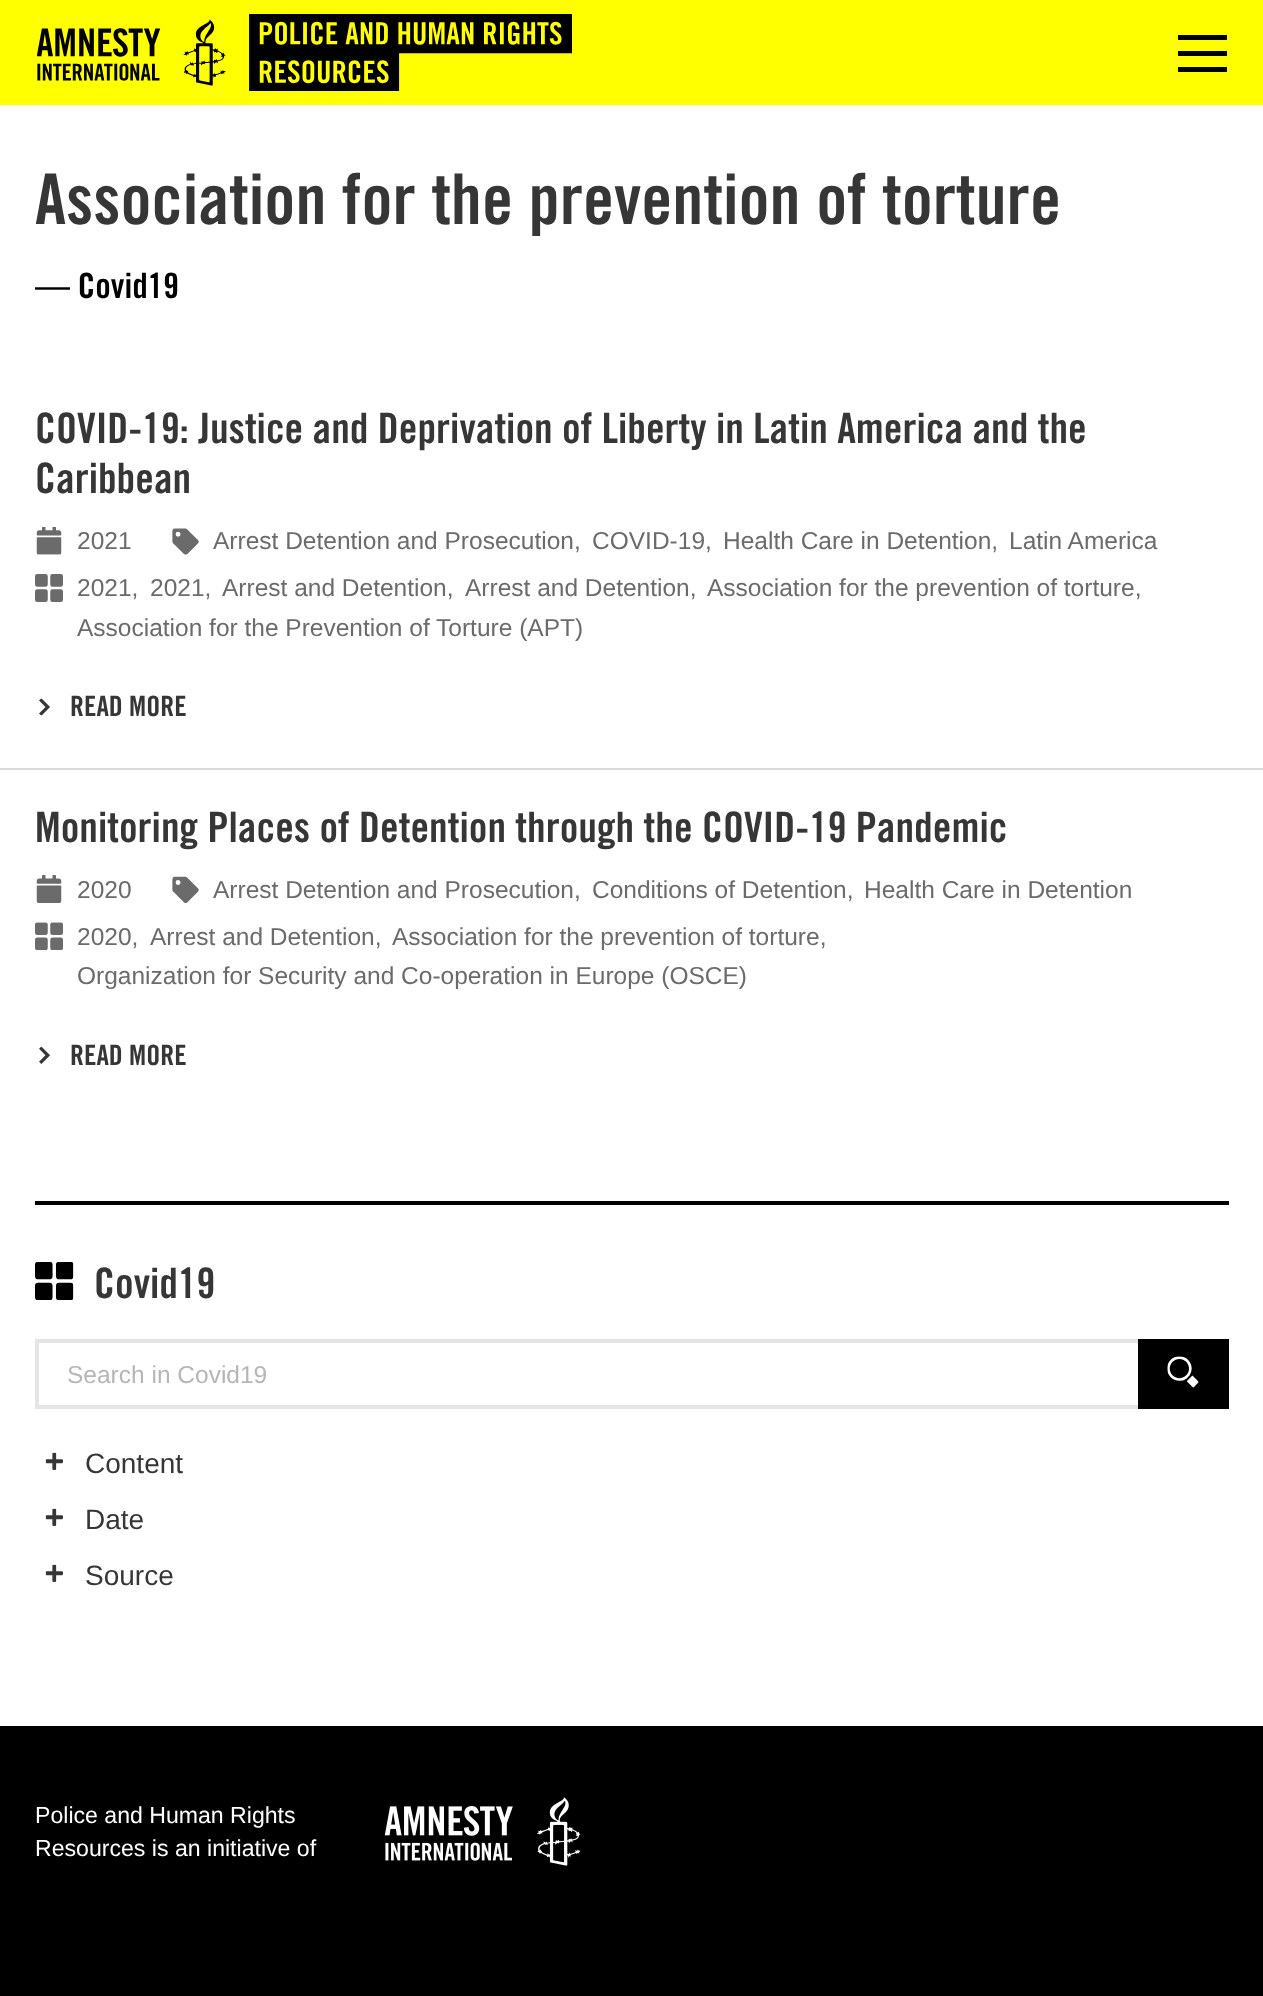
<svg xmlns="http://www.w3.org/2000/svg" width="1263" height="1996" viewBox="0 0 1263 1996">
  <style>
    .t1 { font: 70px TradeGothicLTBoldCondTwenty; fill: #363636; }
    .t2 { font: 35px TradeGothicLTBoldCondTwenty; fill: #000; }
    .t3 { font: 42px TradeGothicLTBoldCondTwenty; fill: #363636; }
    .t4 { font: 24.5px Liberation Sans; fill: #6b6b6b; }
    .t5 { font: 28px TradeGothicLTBoldCondTwenty; fill: #363636; }
    .t6 { font: 24.5px Liberation Sans; fill: #b6b6b6; }
    .t7 { font: 28px Liberation Sans; fill: #363636; }
    .t8 { font: 23.1px Liberation Sans; fill: #fff; }
  </style>
  <rect width="100%" height="100%" fill="#fff"/>
  <rect x="0" y="0" width="1263" height="105" fill="#ff0"/>
  <image x="37" y="14" width="535" height="77" href="images/1.png"/>
  <rect x="1178" y="35" width="49" height="5" fill="#000"/>
  <rect x="1178" y="51" width="49" height="5" fill="#000"/>
  <rect x="1178" y="67" width="49" height="5" fill="#000"/>
  <text x="35" y="224" class="t1">Association for the prevention of torture</text>
  <text x="35" y="298" class="t2">— Covid19</text>
  <text x="35" y="443" class="t3">COVID-19: Justice and Deprivation of Liberty in Latin America and the</text>
  <text x="35" y="493" class="t3">Caribbean</text>
  <image x="36" y="527" width="26" height="28" href="images/2.png"/>
  <text x="77" y="549" class="t4">2021</text>
  <image x="172" y="528" width="27" height="27" href="images/3.png"/>
  <text x="213" y="549" class="t4">Arrest Detention and Prosecution,</text>
  <text x="592" y="549" class="t4">COVID-19,</text>
  <text x="723" y="549" class="t4">Health Care in Detention,</text>
  <text x="1009" y="549" class="t4">Latin America</text>
  <image x="35" y="574" width="28" height="28" href="images/4.png"/>
  <text x="77" y="596" class="t4">2021,</text>
  <text x="150" y="596" class="t4">2021,</text>
  <text x="222" y="596" class="t4">Arrest and Detention,</text>
  <text x="465" y="596" class="t4">Arrest and Detention,</text>
  <text x="707" y="596" class="t4">Association for the prevention of torture,</text>
  <text x="77" y="636" class="t4">Association for the Prevention of Torture (APT)</text>
  <image x="39" y="698" width="11" height="18" href="images/5.png"/>
  <text x="70" y="716" class="t5">READ MORE</text>
  <rect x="0" y="768" width="1263" height="2" fill="#dadada"/>
  <text x="35" y="842" class="t3">Monitoring Places of Detention through the COVID-19 Pandemic</text>
  <image x="36" y="875" width="26" height="28" href="images/6.png"/>
  <text x="77" y="898" class="t4">2020</text>
  <image x="172" y="876" width="27" height="27" href="images/7.png"/>
  <text x="213" y="898" class="t4">Arrest Detention and Prosecution,</text>
  <text x="592" y="898" class="t4">Conditions of Detention,</text>
  <text x="864" y="898" class="t4">Health Care in Detention</text>
  <image x="35" y="922" width="28" height="28" href="images/8.png"/>
  <text x="77" y="945" class="t4">2020,</text>
  <text x="150" y="945" class="t4">Arrest and Detention,</text>
  <text x="392" y="945" class="t4">Association for the prevention of torture,</text>
  <text x="77" y="984" class="t4">Organization for Security and Co-operation in Europe (OSCE)</text>
  <image x="39" y="1046" width="11" height="18" href="images/9.png"/>
  <text x="70" y="1065" class="t5">READ MORE</text>
  <rect x="35" y="1201" width="1194" height="4" fill="#000"/>
  <image x="35" y="1262" width="39" height="38" href="images/10.png"/>
  <text x="94" y="1298" class="t3">Covid19</text>
  <rect x="35" y="1339" width="1103" height="4" fill="#e5e5e5"/>
  <rect x="35" y="1405" width="1103" height="4" fill="#e5e5e5"/>
  <rect x="35" y="1339" width="4" height="70" fill="#e5e5e5"/>
  <text x="67" y="1383" class="t6">Search in Covid19</text>
  <rect x="1138" y="1339" width="91" height="70" fill="#000"/>
  <image x="1167" y="1356" width="32" height="32" href="images/11.png"/>
  <image x="45" y="1452" width="18" height="18" href="images/12.png"/>
  <text x="85" y="1473" class="t7">Content</text>
  <image x="45" y="1508" width="18" height="18" href="images/12.png"/>
  <text x="85" y="1529" class="t7">Date</text>
  <image x="45" y="1564" width="18" height="18" href="images/12.png"/>
  <text x="85" y="1585" class="t7">Source</text>
  <rect x="0" y="1726" width="1263" height="270" fill="#000"/>
  <text x="35" y="1823" class="t8">Police and Human Rights</text>
  <text x="35" y="1856" class="t8">Resources is an initiative of</text>
  <image x="384" y="1797" width="197" height="69" href="images/13.png"/>
</svg>
